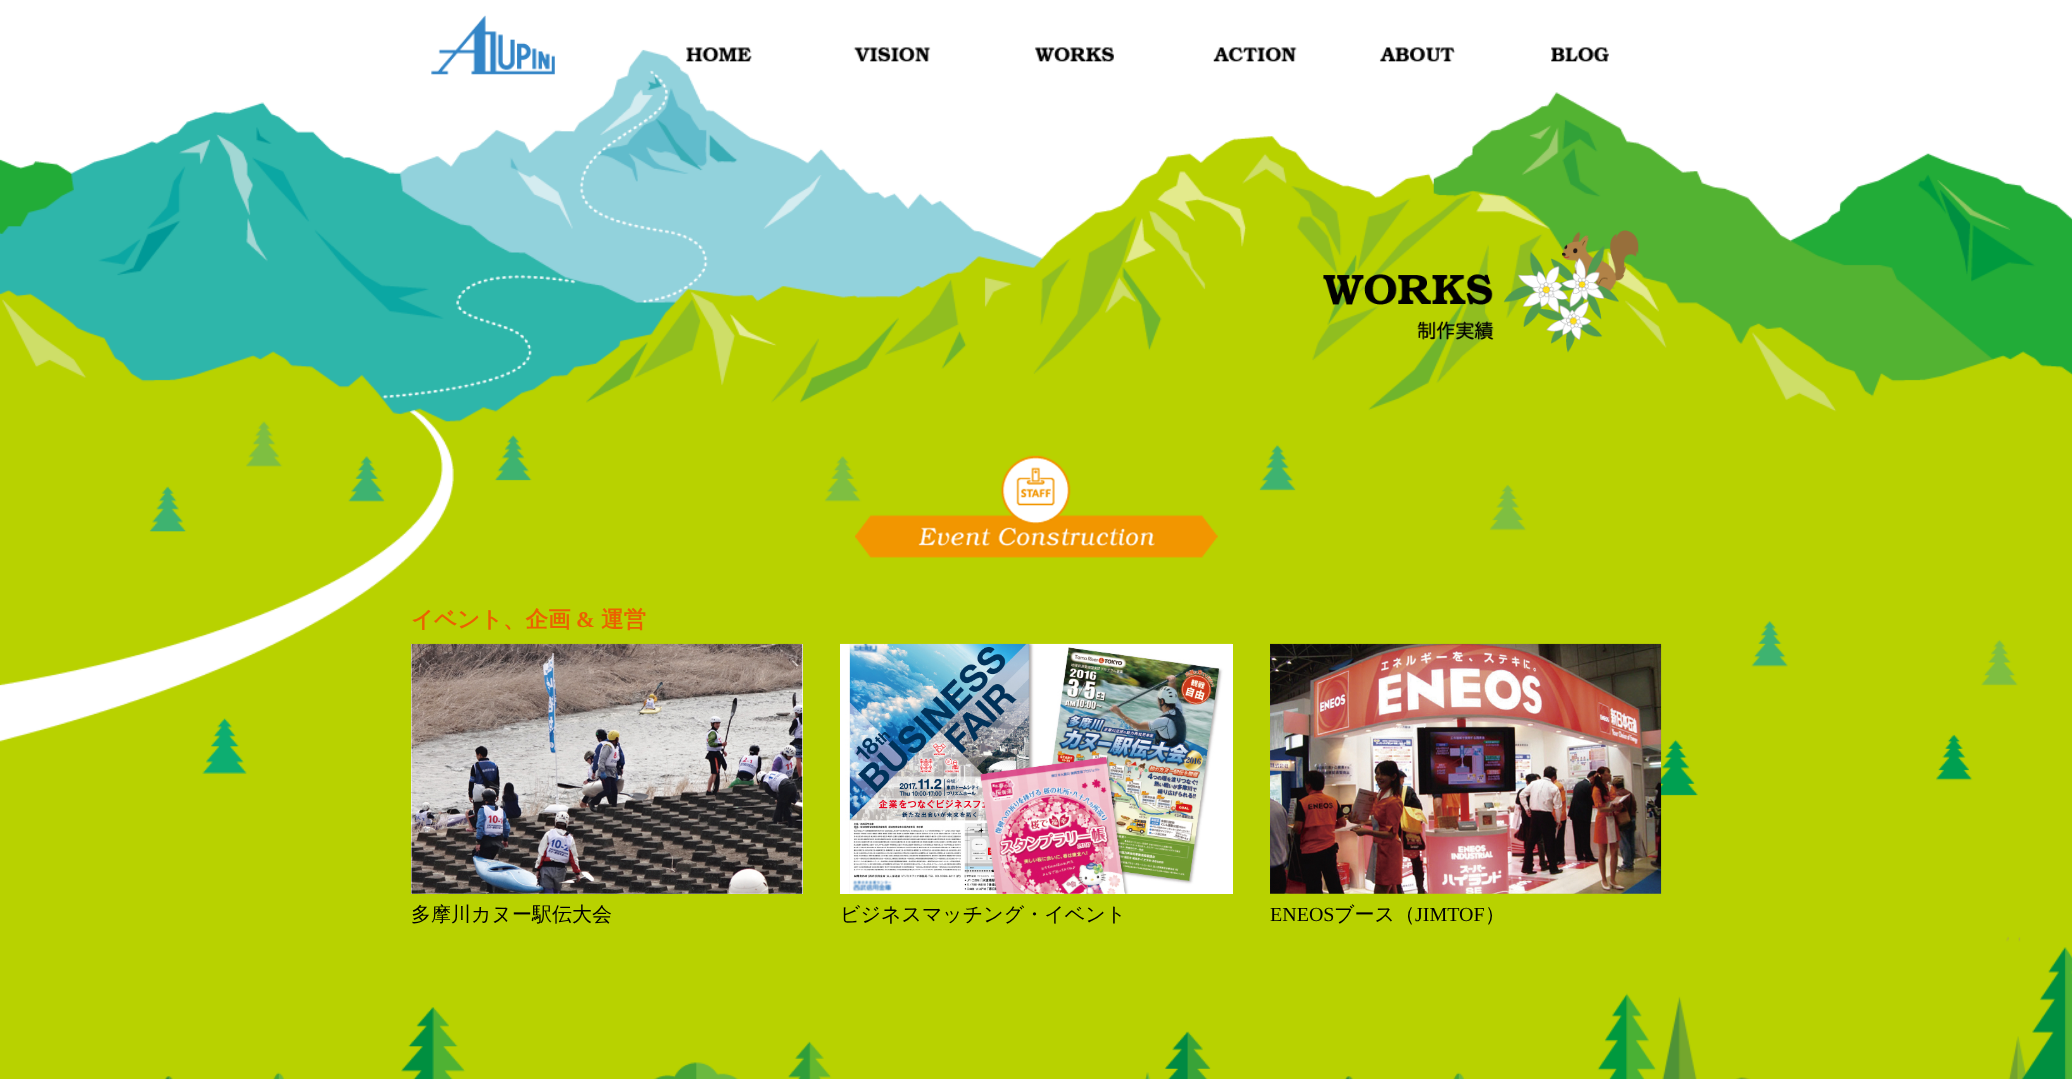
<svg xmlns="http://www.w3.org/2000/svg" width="2072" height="1079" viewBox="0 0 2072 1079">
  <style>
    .t1 { font: bold 22.5px WenQuanYi Zen Hei; fill: #eb6100; }
    .t2 { font: bold 22.5px Liberation Serif; fill: #eb6100; }
    .t3 { font: 500 20px WenQuanYi Zen Hei; fill: #000; }
    .t4 { font: 20px Liberation Serif; fill: #000; }
  </style>
  <rect width="100%" height="100%" fill="#b8d200"/>
  <image x="0" y="0" width="2072" height="796" href="images/1.png"/>
  <image x="431" y="15" width="124" height="60" href="images/2.png"/>
  <image x="686" y="47" width="66" height="15" href="images/3.png"/>
  <image x="853" y="47" width="78" height="15" href="images/4.png"/>
  <image x="1034" y="47" width="80" height="15" href="images/5.png"/>
  <image x="1213" y="47" width="84" height="15" href="images/6.png"/>
  <image x="1379" y="47" width="77" height="15" href="images/7.png"/>
  <image x="1551" y="47" width="58" height="15" href="images/8.png"/>
  <image x="1323" y="230" width="316" height="123" href="images/9.png"/>
  <image x="855" y="455" width="363" height="103" href="images/10.png"/>
  <text x="411" y="627" class="t1">イベント、企画</text>
  <text x="576" y="627" class="t2">&amp;</text>
  <text x="601" y="627" class="t1">運営</text>
  <rect x="411" y="644" width="392" height="250" fill="#fff"/>
  <image x="411" y="643" width="392" height="251" href="images/11.png"/>
  <text x="411" y="921" class="t3">多摩川カヌー駅伝大会</text>
  <rect x="840" y="644" width="393" height="250" fill="#fff"/>
  <image x="840" y="643" width="392" height="251" href="images/12.png"/>
  <text x="840" y="921" class="t3">ビジネスマッチング・イベント</text>
  <image x="1270" y="643" width="392" height="251" href="images/13.png"/>
  <text x="1270" y="921" class="t4">ENEOS</text>
  <text x="1334" y="921" class="t3">ブース（</text>
  <text x="1415" y="921" class="t4">JIMTOF</text>
  <text x="1485" y="921" class="t3">）</text>
  <image x="0" y="936" width="2072" height="143" href="images/14.png"/>
</svg>
